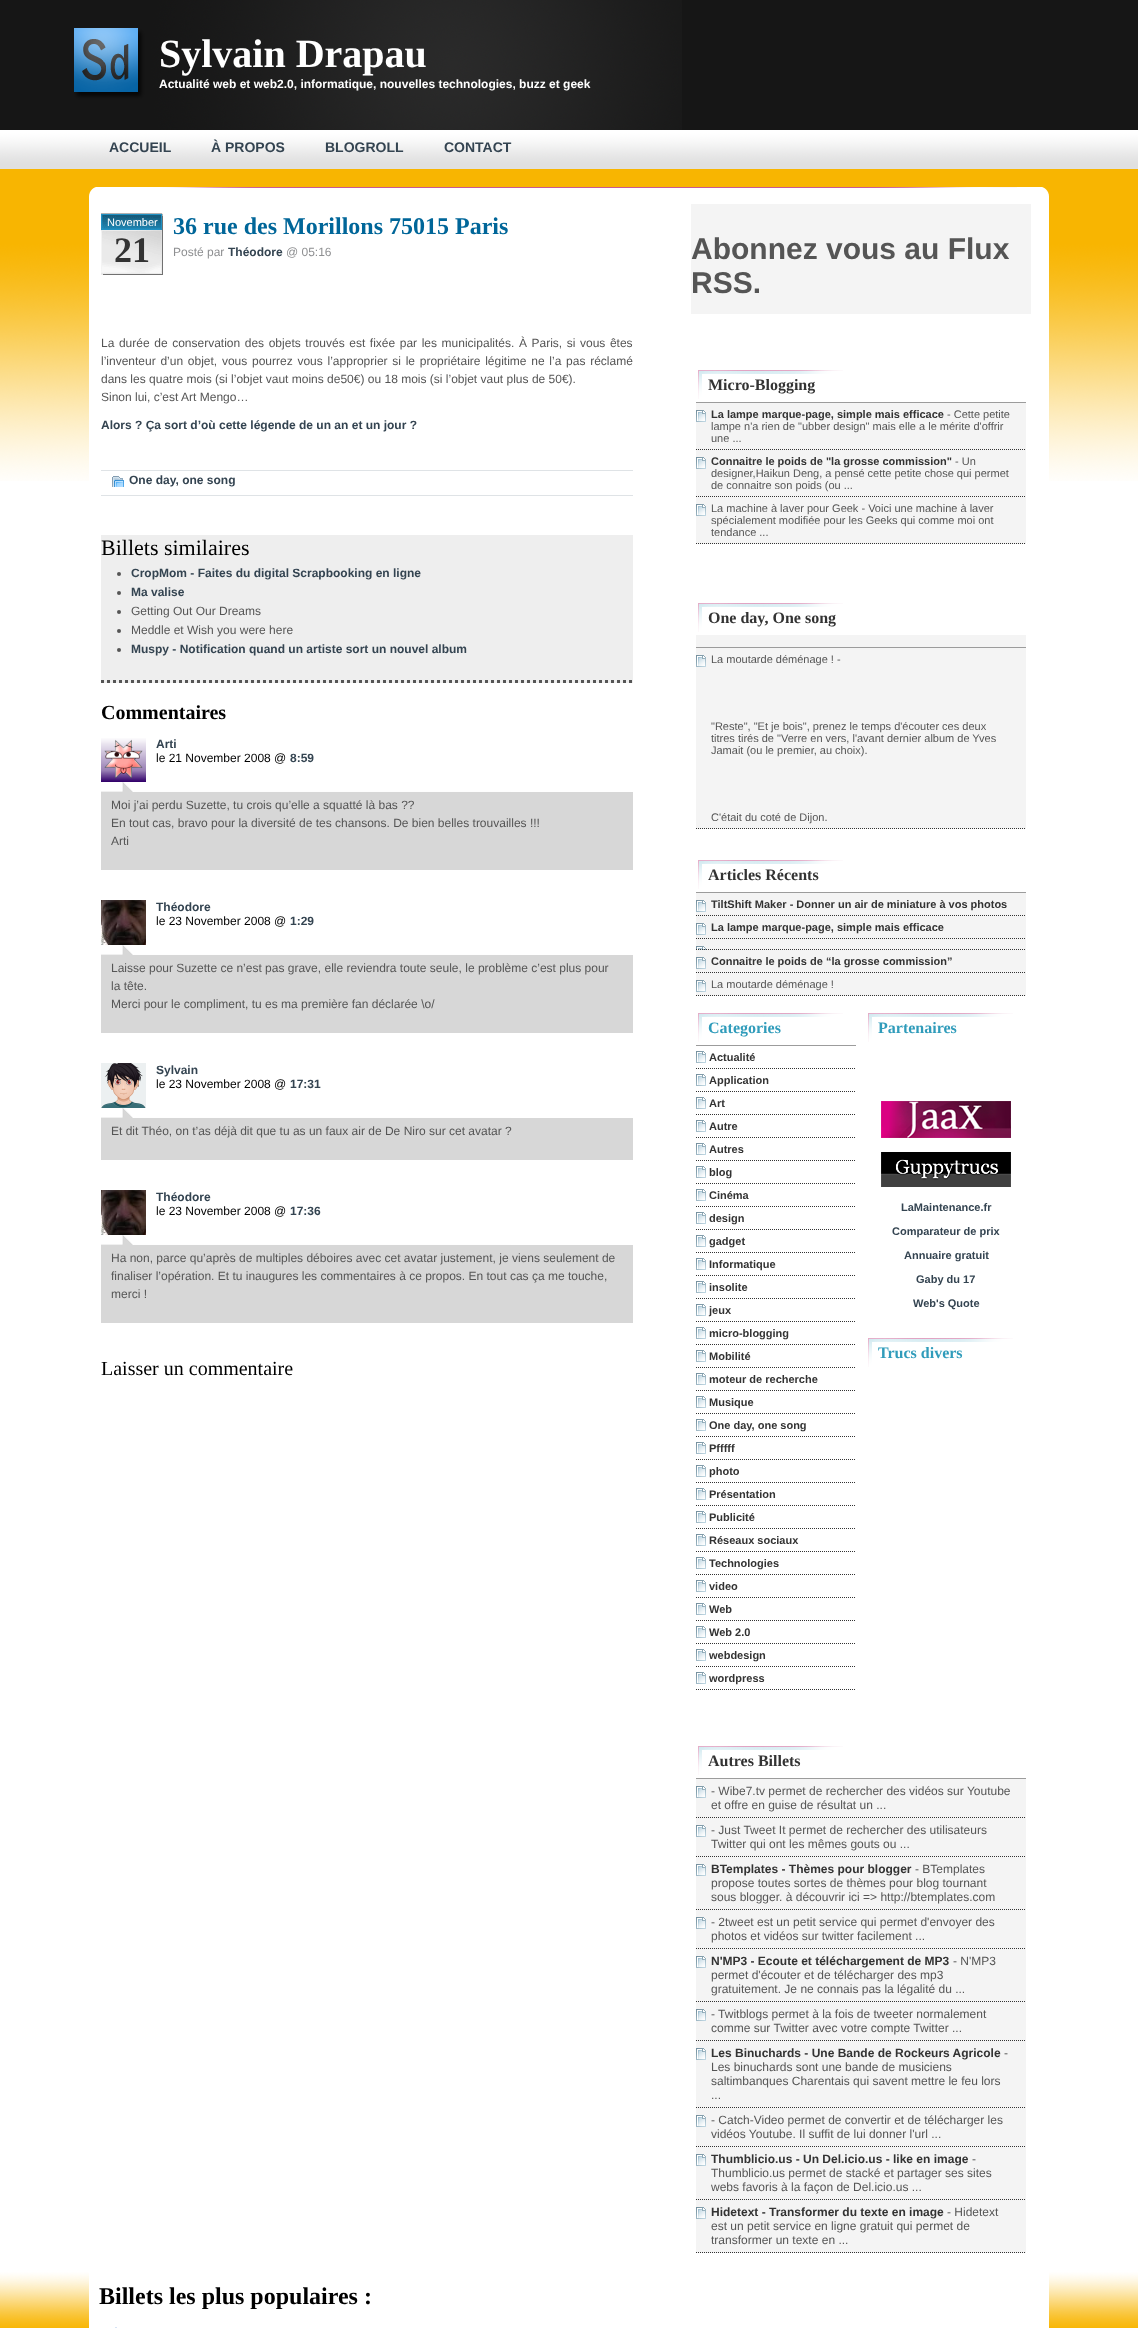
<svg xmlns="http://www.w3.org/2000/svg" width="1138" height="2328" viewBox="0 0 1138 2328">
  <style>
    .t1 { font: bold 40px Liberation Serif; fill: #fff; }
    .t2 { font: bold 12px Liberation Sans; fill: #fff; }
    .t3 { font: bold 14px Liberation Sans; fill: #344451; }
    .t4 { font: 11px Liberation Sans; fill: #fff; }
    .t5 { font: bold 36px Liberation Serif; fill: #333; }
    .t6 { font: bold 24px Liberation Serif; fill: #069; }
    .t7 { font: 12px Liberation Sans; fill: #8e8f91; }
    .t8 { font: bold 12px Liberation Sans; fill: #344451; }
    .t9 { font: 12px Liberation Sans; fill: #555; }
    .t10 { font: 22px Liberation Serif; fill: #000; }
    .t11 { font: bold 20px Liberation Serif; fill: #000; }
    .t12 { font: 12px Liberation Sans; fill: #000; }
    .t13 { font: 20px Liberation Serif; fill: #000; }
    .t14 { font: bold 30px Liberation Sans; fill: #555; }
    .t15 { font: bold 16px Liberation Serif; fill: #333; }
    .t16 { font: bold 11px Liberation Sans; fill: #333; }
    .t17 { font: 11px Liberation Sans; fill: #555; }
    .t18 { font: bold 16px Liberation Serif; fill: #309cbb; }
    .t19 { font: bold 11px Liberation Sans; fill: #344451; }
    .t20 { font: bold 12px Liberation Sans; fill: #333; }
    .t21 { font: bold 24px Liberation Serif; fill: #000; }
  </style>
  <rect width="100%" height="100%" fill="#fff"/>
  <image x="0" y="186" width="1138" height="295" href="images/1.png"/>
  <rect x="0" y="0" width="1138" height="130" fill="#161616"/>
  <image x="74" y="0" width="608" height="130" href="images/2.png"/>
  <text x="159" y="67" class="t1">Sylvain Drapau</text>
  <text x="159" y="88" class="t2">Actualité web et web2.0, informatique, nouvelles technologies, buzz et geek</text>
  <image x="0" y="130" width="1138" height="39" href="images/3.png"/>
  <text x="109" y="152" class="t3">ACCUEIL</text>
  <text x="211" y="152" class="t3">À PROPOS</text>
  <text x="325" y="152" class="t3">BLOGROLL</text>
  <text x="444" y="152" class="t3">CONTACT</text>
  <rect x="0" y="169" width="1138" height="17" fill="#f8b501"/>
  <image x="89" y="187" width="960" height="12" href="images/4.png"/>
  <rect x="89" y="199" width="960" height="282" fill="#fff"/>
  <image x="101" y="213" width="62" height="62" href="images/5.png"/>
  <text x="107" y="226" class="t4">November</text>
  <text x="114" y="262" class="t5">21</text>
  <text x="173" y="234" class="t6">36 rue des Morillons 75015 Paris</text>
  <text x="173" y="256" class="t7">Posté par</text>
  <text x="228" y="256" class="t8">Théodore</text>
  <text x="286" y="256" class="t7">@ 05:16</text>
  <text x="101" y="347" word-spacing="1.25" class="t9">La durée de conservation des objets trouvés est fixée par les municipalités. À Paris, si vous êtes</text>
  <text x="101" y="365" word-spacing="1.4" class="t9">l’inventeur d’un objet, vous pourrez vous l’approprier si le propriétaire légitime ne l’a pas réclamé</text>
  <text x="101" y="383" class="t9">dans les quatre mois (si l’objet vaut moins de50€) ou 18 mois (si l’objet vaut plus de 50€).</text>
  <text x="101" y="401" class="t9">Sinon lui, c’est Art Mengo…</text>
  <text x="101" y="429" class="t8">Alors ? Ça sort d’où cette légende de un an et un jour ?</text>
  <rect x="101" y="470" width="532" height="1" fill="#dfe3e6"/>
  <rect x="101" y="495" width="532" height="1" fill="#dfe3e6"/>
  <image x="112" y="476" width="12" height="11" href="images/6.png"/>
  <text x="129" y="484" class="t8">One day, one song</text>
  <rect x="101" y="535" width="532" height="148" fill="#eee"/>
  <path d="M101 681.5H633" fill="none" stroke="#555" stroke-width="3" stroke-dasharray="3 3"/>
  <text x="101" y="555" class="t10">Billets similaires</text>
  <circle cx="119" cy="574" r="2" fill="#555"/>
  <text x="131" y="577" class="t8">CropMom - Faites du digital Scrapbooking en ligne</text>
  <circle cx="119" cy="593" r="2" fill="#555"/>
  <text x="131" y="596" class="t8">Ma valise</text>
  <circle cx="119" cy="612" r="2" fill="#555"/>
  <text x="131" y="615" class="t9">Getting Out Our Dreams</text>
  <circle cx="119" cy="631" r="2" fill="#555"/>
  <text x="131" y="634" class="t9">Meddle et Wish you were here</text>
  <circle cx="119" cy="650" r="2" fill="#555"/>
  <text x="131" y="653" class="t8">Muspy - Notification quand un artiste sort un nouvel album</text>
  <text x="101" y="719" class="t11">Commentaires</text>
  <image x="101" y="781" width="532" height="11" href="images/8.png"/>
  <image x="101" y="738" width="45" height="44" href="images/7.png"/>
  <text x="156" y="748" class="t8">Arti</text>
  <text x="156" y="762" class="t12">le 21 November 2008 @</text>
  <text x="290" y="762" class="t8">8:59</text>
  <rect x="101" y="792" width="532" height="78" fill="#d7d7d7"/>
  <text x="111" y="809" class="t9">Moi j’ai perdu Suzette, tu crois qu’elle a squatté là bas ??</text>
  <text x="111" y="827" class="t9">En tout cas, bravo pour la diversité de tes chansons. De bien belles trouvailles !!!</text>
  <text x="111" y="845" class="t9">Arti</text>
  <image x="101" y="944" width="532" height="11" href="images/8.png"/>
  <image x="101" y="900" width="45" height="45" href="images/9.png"/>
  <text x="156" y="911" class="t8">Théodore</text>
  <text x="156" y="925" class="t12">le 23 November 2008 @</text>
  <text x="290" y="925" class="t8">1:29</text>
  <rect x="101" y="955" width="532" height="78" fill="#d7d7d7"/>
  <text x="111" y="972" class="t9">Laisse pour Suzette ce n’est pas grave, elle reviendra toute seule, le problème c’est plus pour</text>
  <text x="111" y="990" class="t9">la tête.</text>
  <text x="111" y="1008" class="t9">Merci pour le compliment, tu es ma première fan déclarée \o/</text>
  <image x="101" y="1107" width="532" height="11" href="images/8.png"/>
  <image x="101" y="1063" width="45" height="45" href="images/10.png"/>
  <text x="156" y="1074" class="t8">Sylvain</text>
  <text x="156" y="1088" class="t12">le 23 November 2008 @</text>
  <text x="290" y="1088" class="t8">17:31</text>
  <rect x="101" y="1118" width="532" height="42" fill="#d7d7d7"/>
  <text x="111" y="1135" class="t9">Et dit Théo, on t’as déjà dit que tu as un faux air de De Niro sur cet avatar ?</text>
  <image x="101" y="1234" width="532" height="11" href="images/8.png"/>
  <image x="101" y="1190" width="45" height="45" href="images/9.png"/>
  <text x="156" y="1201" class="t8">Théodore</text>
  <text x="156" y="1215" class="t12">le 23 November 2008 @</text>
  <text x="290" y="1215" class="t8">17:36</text>
  <rect x="101" y="1245" width="532" height="78" fill="#d7d7d7"/>
  <text x="111" y="1262" class="t9">Ha non, parce qu’après de multiples déboires avec cet avatar justement, je viens seulement de</text>
  <text x="111" y="1280" class="t9">finaliser l’opération. Et tu inaugures les commentaires à ce propos. En tout cas ça me touche,</text>
  <text x="111" y="1298" class="t9">merci !</text>
  <text x="101" y="1375" class="t13">Laisser un commentaire</text>
  <rect x="691" y="204" width="340" height="110" fill="#f4f4f4"/>
  <text x="691" y="259" class="t14">Abonnez vous au Flux</text>
  <text x="691" y="293" class="t14">RSS.</text>
  <rect x="696" y="403" width="330" height="141" fill="#f4f4f4"/>
  <image x="698" y="370" width="145" height="29" href="images/11.png"/>
  <text x="708" y="390" class="t15">Micro-Blogging</text>
  <rect x="696" y="402" width="330" height="1" fill="#9c9c9c"/>
  <image x="696" y="410" width="10" height="12" href="images/12.png"/>
  <path d="M696 449.5H1026" fill="none" stroke="#333" stroke-dasharray="1 1"/>
  <text x="711" y="418" class="t16">La lampe marque-page, simple mais efficace</text>
  <text x="947" y="418" class="t17">- Cette petite</text>
  <text x="711" y="430" class="t17">lampe n'a rien de "ubber design" mais elle a le mérite d'offrir</text>
  <text x="711" y="442" class="t17">une ...</text>
  <image x="696" y="457" width="10" height="12" href="images/12.png"/>
  <path d="M696 496.5H1026" fill="none" stroke="#333" stroke-dasharray="1 1"/>
  <text x="711" y="465" class="t16">Connaitre le poids de "la grosse commission"</text>
  <text x="955" y="465" class="t17">- Un</text>
  <text x="711" y="477" class="t17">designer,Haikun Deng, a pensé cette petite chose qui permet</text>
  <text x="711" y="489" class="t17">de connaitre son poids (ou ...</text>
  <image x="696" y="504" width="10" height="12" href="images/12.png"/>
  <path d="M696 543.5H1026" fill="none" stroke="#333" stroke-dasharray="1 1"/>
  <text x="711" y="512" class="t17">La machine à laver pour Geek - Voici une machine à laver</text>
  <text x="711" y="524" class="t17">spécialement modifiée pour les Geeks qui comme moi ont</text>
  <text x="711" y="536" class="t17">tendance ...</text>
  <rect x="696" y="635" width="330" height="194" fill="#f4f4f4"/>
  <image x="698" y="603" width="145" height="29" href="images/11.png"/>
  <text x="708" y="623" class="t15">One day, One song</text>
  <rect x="696" y="647" width="330" height="1" fill="#9c9c9c"/>
  <image x="696" y="655" width="10" height="12" href="images/12.png"/>
  <path d="M696 828.5H1026" fill="none" stroke="#333" stroke-dasharray="1 1"/>
  <text x="711" y="663" class="t17">La moutarde déménage ! -</text>
  <text x="711" y="730" class="t17">"Reste", "Et je bois", prenez le temps d'écouter ces deux</text>
  <text x="711" y="742" class="t17">titres tirés de "Verre en vers, l'avant dernier album de Yves</text>
  <text x="711" y="754" class="t17">Jamait (ou le premier, au choix).</text>
  <text x="711" y="821" class="t17">C'était du coté de Dijon.</text>
  <rect x="696" y="893" width="330" height="103" fill="#f4f4f4"/>
  <image x="698" y="860" width="145" height="29" href="images/11.png"/>
  <text x="708" y="880" class="t15">Articles Récents</text>
  <rect x="696" y="892" width="330" height="1" fill="#9c9c9c"/>
  <image x="696" y="900" width="10" height="12" href="images/12.png"/>
  <path d="M696 915.5H1026" fill="none" stroke="#333" stroke-dasharray="1 1"/>
  <text x="711" y="908" class="t16">TiltShift Maker - Donner un air de miniature à vos photos</text>
  <image x="696" y="923" width="10" height="12" href="images/12.png"/>
  <path d="M696 938.5H1026" fill="none" stroke="#333" stroke-dasharray="1 1"/>
  <text x="711" y="931" class="t16">La lampe marque-page, simple mais efficace</text>
  <image x="696" y="946" width="10" height="4" href="images/13.png"/>
  <path d="M696 949.5H1026" fill="none" stroke="#333" stroke-dasharray="1 1"/>
  <image x="696" y="957" width="10" height="12" href="images/12.png"/>
  <path d="M696 972.5H1026" fill="none" stroke="#333" stroke-dasharray="1 1"/>
  <text x="711" y="965" class="t16">Connaitre le poids de “la grosse commission”</text>
  <image x="696" y="980" width="10" height="12" href="images/12.png"/>
  <path d="M696 995.5H1026" fill="none" stroke="#333" stroke-dasharray="1 1"/>
  <text x="711" y="988" class="t17">La moutarde déménage !</text>
  <image x="698" y="1013" width="145" height="29" href="images/11.png"/>
  <text x="708" y="1033" class="t18">Categories</text>
  <rect x="696" y="1045" width="160" height="1" fill="#9c9c9c"/>
  <image x="696" y="1051" width="10" height="12" href="images/14.png"/>
  <path d="M696 1068.5H856" fill="none" stroke="#333" stroke-dasharray="1 1"/>
  <text x="709" y="1061" class="t16">Actualité</text>
  <image x="696" y="1074" width="10" height="12" href="images/14.png"/>
  <path d="M696 1091.5H856" fill="none" stroke="#333" stroke-dasharray="1 1"/>
  <text x="709" y="1084" class="t16">Application</text>
  <image x="696" y="1097" width="10" height="12" href="images/14.png"/>
  <path d="M696 1114.5H856" fill="none" stroke="#333" stroke-dasharray="1 1"/>
  <text x="709" y="1107" class="t16">Art</text>
  <image x="696" y="1120" width="10" height="12" href="images/14.png"/>
  <path d="M696 1137.5H856" fill="none" stroke="#333" stroke-dasharray="1 1"/>
  <text x="709" y="1130" class="t16">Autre</text>
  <image x="696" y="1143" width="10" height="12" href="images/14.png"/>
  <path d="M696 1160.5H856" fill="none" stroke="#333" stroke-dasharray="1 1"/>
  <text x="709" y="1153" class="t16">Autres</text>
  <image x="696" y="1166" width="10" height="12" href="images/14.png"/>
  <path d="M696 1183.5H856" fill="none" stroke="#333" stroke-dasharray="1 1"/>
  <text x="709" y="1176" class="t16">blog</text>
  <image x="696" y="1189" width="10" height="12" href="images/14.png"/>
  <path d="M696 1206.5H856" fill="none" stroke="#333" stroke-dasharray="1 1"/>
  <text x="709" y="1199" class="t16">Cinéma</text>
  <image x="696" y="1212" width="10" height="12" href="images/14.png"/>
  <path d="M696 1229.5H856" fill="none" stroke="#333" stroke-dasharray="1 1"/>
  <text x="709" y="1222" class="t16">design</text>
  <image x="696" y="1235" width="10" height="12" href="images/14.png"/>
  <path d="M696 1252.5H856" fill="none" stroke="#333" stroke-dasharray="1 1"/>
  <text x="709" y="1245" class="t16">gadget</text>
  <image x="696" y="1258" width="10" height="12" href="images/14.png"/>
  <path d="M696 1275.5H856" fill="none" stroke="#333" stroke-dasharray="1 1"/>
  <text x="709" y="1268" class="t16">Informatique</text>
  <image x="696" y="1281" width="10" height="12" href="images/14.png"/>
  <path d="M696 1298.5H856" fill="none" stroke="#333" stroke-dasharray="1 1"/>
  <text x="709" y="1291" class="t16">insolite</text>
  <image x="696" y="1304" width="10" height="12" href="images/14.png"/>
  <path d="M696 1321.5H856" fill="none" stroke="#333" stroke-dasharray="1 1"/>
  <text x="709" y="1314" class="t16">jeux</text>
  <image x="696" y="1327" width="10" height="12" href="images/14.png"/>
  <path d="M696 1344.5H856" fill="none" stroke="#333" stroke-dasharray="1 1"/>
  <text x="709" y="1337" class="t16">micro-blogging</text>
  <image x="696" y="1350" width="10" height="12" href="images/14.png"/>
  <path d="M696 1367.5H856" fill="none" stroke="#333" stroke-dasharray="1 1"/>
  <text x="709" y="1360" class="t16">Mobilité</text>
  <image x="696" y="1373" width="10" height="12" href="images/14.png"/>
  <path d="M696 1390.5H856" fill="none" stroke="#333" stroke-dasharray="1 1"/>
  <text x="709" y="1383" class="t16">moteur de recherche</text>
  <image x="696" y="1396" width="10" height="12" href="images/14.png"/>
  <path d="M696 1413.5H856" fill="none" stroke="#333" stroke-dasharray="1 1"/>
  <text x="709" y="1406" class="t16">Musique</text>
  <image x="696" y="1419" width="10" height="12" href="images/14.png"/>
  <path d="M696 1436.5H856" fill="none" stroke="#333" stroke-dasharray="1 1"/>
  <text x="709" y="1429" class="t16">One day, one song</text>
  <image x="696" y="1442" width="10" height="12" href="images/14.png"/>
  <path d="M696 1459.5H856" fill="none" stroke="#333" stroke-dasharray="1 1"/>
  <text x="709" y="1452" class="t16">Pfffff</text>
  <image x="696" y="1465" width="10" height="12" href="images/14.png"/>
  <path d="M696 1482.5H856" fill="none" stroke="#333" stroke-dasharray="1 1"/>
  <text x="709" y="1475" class="t16">photo</text>
  <image x="696" y="1488" width="10" height="12" href="images/14.png"/>
  <path d="M696 1505.5H856" fill="none" stroke="#333" stroke-dasharray="1 1"/>
  <text x="709" y="1498" class="t16">Présentation</text>
  <image x="696" y="1511" width="10" height="12" href="images/14.png"/>
  <path d="M696 1528.5H856" fill="none" stroke="#333" stroke-dasharray="1 1"/>
  <text x="709" y="1521" class="t16">Publicité</text>
  <image x="696" y="1534" width="10" height="12" href="images/14.png"/>
  <path d="M696 1551.5H856" fill="none" stroke="#333" stroke-dasharray="1 1"/>
  <text x="709" y="1544" class="t16">Réseaux sociaux</text>
  <image x="696" y="1557" width="10" height="12" href="images/14.png"/>
  <path d="M696 1574.5H856" fill="none" stroke="#333" stroke-dasharray="1 1"/>
  <text x="709" y="1567" class="t16">Technologies</text>
  <image x="696" y="1580" width="10" height="12" href="images/14.png"/>
  <path d="M696 1597.5H856" fill="none" stroke="#333" stroke-dasharray="1 1"/>
  <text x="709" y="1590" class="t16">video</text>
  <image x="696" y="1603" width="10" height="12" href="images/14.png"/>
  <path d="M696 1620.5H856" fill="none" stroke="#333" stroke-dasharray="1 1"/>
  <text x="709" y="1613" class="t16">Web</text>
  <image x="696" y="1626" width="10" height="12" href="images/14.png"/>
  <path d="M696 1643.5H856" fill="none" stroke="#333" stroke-dasharray="1 1"/>
  <text x="709" y="1636" class="t16">Web 2.0</text>
  <image x="696" y="1649" width="10" height="12" href="images/14.png"/>
  <path d="M696 1666.5H856" fill="none" stroke="#333" stroke-dasharray="1 1"/>
  <text x="709" y="1659" class="t16">webdesign</text>
  <image x="696" y="1672" width="10" height="12" href="images/14.png"/>
  <path d="M696 1689.5H856" fill="none" stroke="#333" stroke-dasharray="1 1"/>
  <text x="709" y="1682" class="t16">wordpress</text>
  <image x="868" y="1013" width="145" height="29" href="images/11.png"/>
  <text x="878" y="1033" class="t18">Partenaires</text>
  <image x="881" y="1101" width="130" height="37" href="images/15.png"/>
  <image x="881" y="1152" width="130" height="35" href="images/16.png"/>
  <text x="901" y="1211" class="t19">LaMaintenance.fr</text>
  <text x="892" y="1235" class="t19">Comparateur de prix</text>
  <text x="904" y="1259" class="t19">Annuaire gratuit</text>
  <text x="916" y="1283" class="t19">Gaby du 17</text>
  <text x="913" y="1307" class="t19">Web's Quote</text>
  <image x="868" y="1338" width="145" height="29" href="images/11.png"/>
  <text x="878" y="1358" class="t18">Trucs divers</text>
  <rect x="696" y="1779" width="330" height="474" fill="#f4f4f4"/>
  <image x="698" y="1746" width="145" height="29" href="images/11.png"/>
  <text x="708" y="1766" class="t15">Autres Billets</text>
  <rect x="696" y="1778" width="330" height="1" fill="#9c9c9c"/>
  <image x="696" y="1786" width="10" height="12" href="images/12.png"/>
  <path d="M696 1817.5H1026" fill="none" stroke="#333" stroke-dasharray="1 1"/>
  <text x="711" y="1795" class="t9">- Wibe7.tv permet de rechercher des vidéos sur Youtube</text>
  <text x="711" y="1809" class="t9">et offre en guise de résultat un ...</text>
  <image x="696" y="1825" width="10" height="12" href="images/12.png"/>
  <path d="M696 1856.5H1026" fill="none" stroke="#333" stroke-dasharray="1 1"/>
  <text x="711" y="1834" class="t9">- Just Tweet It permet de rechercher des utilisateurs</text>
  <text x="711" y="1848" class="t9">Twitter qui ont les mêmes gouts ou ...</text>
  <image x="696" y="1864" width="10" height="12" href="images/12.png"/>
  <path d="M696 1909.5H1026" fill="none" stroke="#333" stroke-dasharray="1 1"/>
  <text x="711" y="1873" class="t20">BTemplates - Thèmes pour blogger</text>
  <text x="915" y="1873" class="t9">- BTemplates</text>
  <text x="711" y="1887" class="t9">propose toutes sortes de thèmes pour blog tournant</text>
  <text x="711" y="1901" class="t9">sous blogger. à découvrir ici =&gt; http://btemplates.com</text>
  <image x="696" y="1917" width="10" height="12" href="images/12.png"/>
  <path d="M696 1948.5H1026" fill="none" stroke="#333" stroke-dasharray="1 1"/>
  <text x="711" y="1926" class="t9">- 2tweet est un petit service qui permet d'envoyer des</text>
  <text x="711" y="1940" class="t9">photos et vidéos sur twitter facilement ...</text>
  <image x="696" y="1956" width="10" height="12" href="images/12.png"/>
  <path d="M696 2001.5H1026" fill="none" stroke="#333" stroke-dasharray="1 1"/>
  <text x="711" y="1965" class="t20">N'MP3 - Ecoute et téléchargement de MP3</text>
  <text x="953" y="1965" class="t9">- N'MP3</text>
  <text x="711" y="1979" class="t9">permet d'écouter et de télécharger des mp3</text>
  <text x="711" y="1993" class="t9">gratuitement. Je ne connais pas la légalité du ...</text>
  <image x="696" y="2009" width="10" height="12" href="images/12.png"/>
  <path d="M696 2040.5H1026" fill="none" stroke="#333" stroke-dasharray="1 1"/>
  <text x="711" y="2018" class="t9">- Twitblogs permet à la fois de tweeter normalement</text>
  <text x="711" y="2032" class="t9">comme sur Twitter avec votre compte Twitter ...</text>
  <image x="696" y="2048" width="10" height="12" href="images/12.png"/>
  <path d="M696 2107.5H1026" fill="none" stroke="#333" stroke-dasharray="1 1"/>
  <text x="711" y="2057" class="t20">Les Binuchards - Une Bande de Rockeurs Agricole</text>
  <text x="1004" y="2057" class="t9">-</text>
  <text x="711" y="2071" class="t9">Les binuchards sont une bande de musiciens</text>
  <text x="711" y="2085" class="t9">saltimbanques Charentais qui savent mettre le feu lors</text>
  <text x="711" y="2099" class="t9">...</text>
  <image x="696" y="2115" width="10" height="12" href="images/12.png"/>
  <path d="M696 2146.5H1026" fill="none" stroke="#333" stroke-dasharray="1 1"/>
  <text x="711" y="2124" class="t9">- Catch-Video permet de convertir et de télécharger les</text>
  <text x="711" y="2138" class="t9">vidéos Youtube. Il suffit de lui donner l'url ...</text>
  <image x="696" y="2154" width="10" height="12" href="images/12.png"/>
  <path d="M696 2199.5H1026" fill="none" stroke="#333" stroke-dasharray="1 1"/>
  <text x="711" y="2163" class="t20">Thumblicio.us - Un Del.icio.us - like en image</text>
  <text x="972" y="2163" class="t9">-</text>
  <text x="711" y="2177" class="t9">Thumblicio.us permet de stacké et partager ses sites</text>
  <text x="711" y="2191" class="t9">webs favoris à la façon de Del.icio.us ...</text>
  <image x="696" y="2207" width="10" height="12" href="images/12.png"/>
  <path d="M696 2252.5H1026" fill="none" stroke="#333" stroke-dasharray="1 1"/>
  <text x="711" y="2216" class="t20">Hidetext - Transformer du texte en image</text>
  <text x="947" y="2216" class="t9">- Hidetext</text>
  <text x="711" y="2230" class="t9">est un petit service en ligne gratuit qui permet de</text>
  <text x="711" y="2244" class="t9">transformer un texte en ...</text>
  <image x="0" y="2268" width="1138" height="60" href="images/17.png"/>
  <rect x="89" y="2272" width="960" height="56" fill="#fff"/>
  <text x="99" y="2304" class="t21">Billets les plus populaires :</text>
  <rect x="115" y="2327" width="2" height="1" fill="#d7e4f5"/>
</svg>
